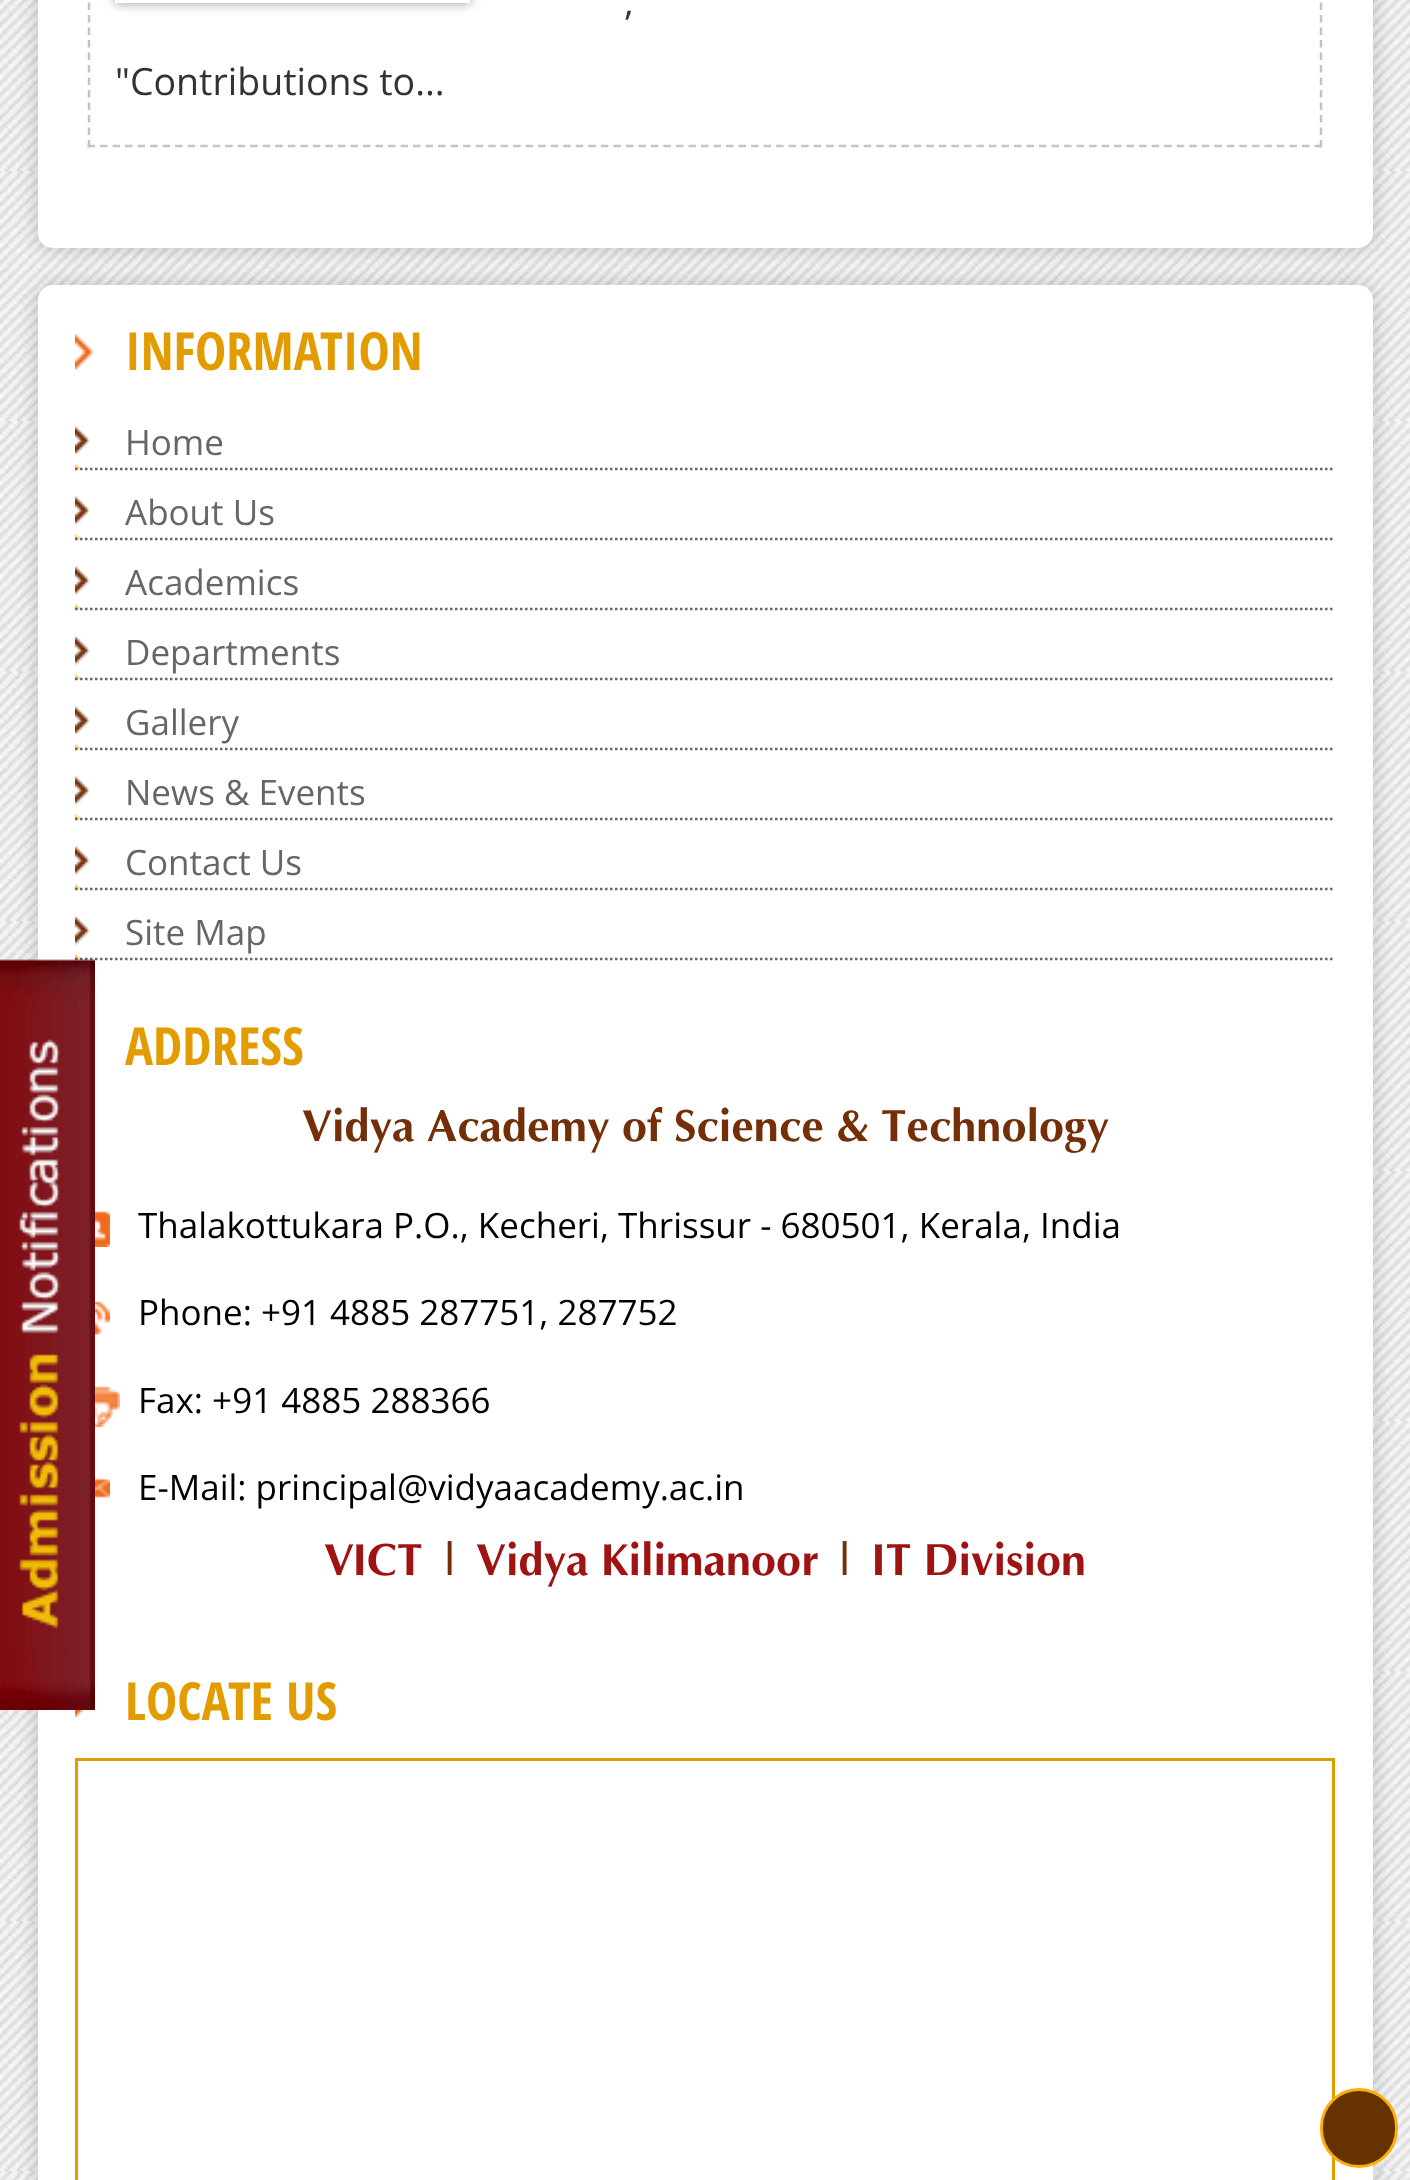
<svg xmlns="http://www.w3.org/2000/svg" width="1410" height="2180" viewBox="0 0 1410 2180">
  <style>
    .t1 { font: 37.5px Open Sans; fill: #333; }
    .t2 { font: bold 52.5px Open Sans Condensed; fill: #e39c00; }
    .t3 { font: 35px Open Sans; fill: #666; }
    .t4 { font: bold 45px Optima; fill: #742f09; }
    .t5 { font: 35px Open Sans; fill: #000; }
    .t6 { font: bold 45px Optima; fill: #a01313; }
  </style>
  <defs>
    <clipPath id="clip1"><path d="M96 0H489V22H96ZM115-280H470V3H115Z" clip-rule="evenodd"/></clipPath>
  </defs>
  <rect width="100%" height="100%" fill="#fff"/>
  <image x="0" y="0" width="1410" height="2180" href="images/2.png"/>
  <rect x="38" y="285" width="1335" height="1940" rx="15" fill="#00000033" filter="blur(10px)"/>
  <rect x="38" y="285" width="1335" height="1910" rx="15" fill="#fff"/>
  <image x="75" y="916" width="15" height="44" href="images/4.png"/>
  <path d="M75 959H1335" fill="none" stroke="#666" stroke-width="2.5" stroke-dasharray="2.5 2.5"/>
  <image x="0" y="959" width="95" height="751" href="images/1.png"/>
  <rect x="38" y="-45" width="1335" height="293" rx="15" fill="#00000033" filter="blur(10px)"/>
  <rect x="38" y="-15" width="1335" height="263" rx="15" fill="#fff"/>
  <path d="M1321-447.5V147.5" fill="none" stroke="#c5c3c3" stroke-width="2.5" stroke-dasharray="7.5 5"/>
  <path d="M87.5 146H1322.5" fill="none" stroke="#c5c3c3" stroke-width="2.5" stroke-dasharray="7.5 5.02"/>
  <path d="M89-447.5V147.5" fill="none" stroke="#c5c3c3" stroke-width="2.5" stroke-dasharray="7.5 5"/>
  <g clip-path="url(#clip1)">
    <rect x="115" y="-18" width="355" height="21" fill="#00000069" filter="blur(6px)"/>
  </g>
  <text x="624" y="15" class="t1">,</text>
  <text x="115" y="95" class="t1">"Contributions to...</text>
  <image x="75" y="334" width="18" height="36" href="images/3.png"/>
  <text x="125" y="370" class="t2">INFORMATION</text>
  <image x="75" y="426" width="15" height="44" href="images/4.png"/>
  <path d="M75 469H1335" fill="none" stroke="#666" stroke-width="2.5" stroke-dasharray="2.5 2.5"/>
  <text x="125" y="455" class="t3">Home</text>
  <image x="75" y="496" width="15" height="44" href="images/4.png"/>
  <path d="M75 539H1335" fill="none" stroke="#666" stroke-width="2.5" stroke-dasharray="2.5 2.5"/>
  <text x="125" y="525" class="t3">About Us</text>
  <image x="75" y="566" width="15" height="44" href="images/4.png"/>
  <path d="M75 609H1335" fill="none" stroke="#666" stroke-width="2.5" stroke-dasharray="2.5 2.5"/>
  <text x="125" y="595" class="t3">Academics</text>
  <image x="75" y="636" width="15" height="44" href="images/4.png"/>
  <path d="M75 679H1335" fill="none" stroke="#666" stroke-width="2.5" stroke-dasharray="2.5 2.5"/>
  <text x="125" y="665" class="t3">Departments</text>
  <image x="75" y="706" width="15" height="44" href="images/4.png"/>
  <path d="M75 749H1335" fill="none" stroke="#666" stroke-width="2.5" stroke-dasharray="2.5 2.5"/>
  <text x="125" y="735" class="t3">Gallery</text>
  <image x="75" y="776" width="15" height="44" href="images/4.png"/>
  <path d="M75 819H1335" fill="none" stroke="#666" stroke-width="2.5" stroke-dasharray="2.5 2.5"/>
  <text x="125" y="805" class="t3">News &amp; Events</text>
  <image x="75" y="846" width="15" height="44" href="images/4.png"/>
  <path d="M75 889H1335" fill="none" stroke="#666" stroke-width="2.5" stroke-dasharray="2.5 2.5"/>
  <text x="125" y="875" class="t3">Contact Us</text>
  <text x="125" y="945" class="t3">Site Map</text>
  <text x="125" y="1065" class="t2">ADDRESS</text>
  <text x="302" y="1141" class="t4">Vidya Academy of Science &amp; Technology</text>
  <image x="95" y="1211" width="15" height="36" href="images/5.png"/>
  <text x="138" y="1238" class="t5">Thalakottukara P.O., Kecheri, Thrissur - 680501, Kerala, India</text>
  <image x="95" y="1301" width="15" height="34" href="images/6.png"/>
  <text x="138" y="1325" class="t5">Phone: +91 4885 287751, 287752</text>
  <image x="95" y="1386" width="25" height="41" href="images/7.png"/>
  <text x="138" y="1413" class="t5">Fax: +91 4885 288366</text>
  <image x="95" y="1478" width="15" height="20" href="images/8.png"/>
  <text x="138" y="1500" class="t5">E-Mail: principal@vidyaacademy.ac.in</text>
  <text x="324" y="1575" class="t6">VICT</text>
  <text x="436" y="1575" class="t4">|</text>
  <text x="476" y="1575" class="t6">Vidya Kilimanoor</text>
  <text x="831" y="1575" class="t4">|</text>
  <text x="871" y="1575" class="t6">IT Division</text>
  <image x="75" y="1710" width="10" height="7" href="images/9.png"/>
  <text x="125" y="1720" class="t2">LOCATE US</text>
  <rect x="76.5" y="1759.5" width="1257" height="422" fill="none" stroke="#e39c00" stroke-width="3"/>
  <rect x="1321.5" y="2089.5" width="75" height="77" rx="37.5" fill="#630" stroke="#fbaf08" stroke-width="3"/>
</svg>
